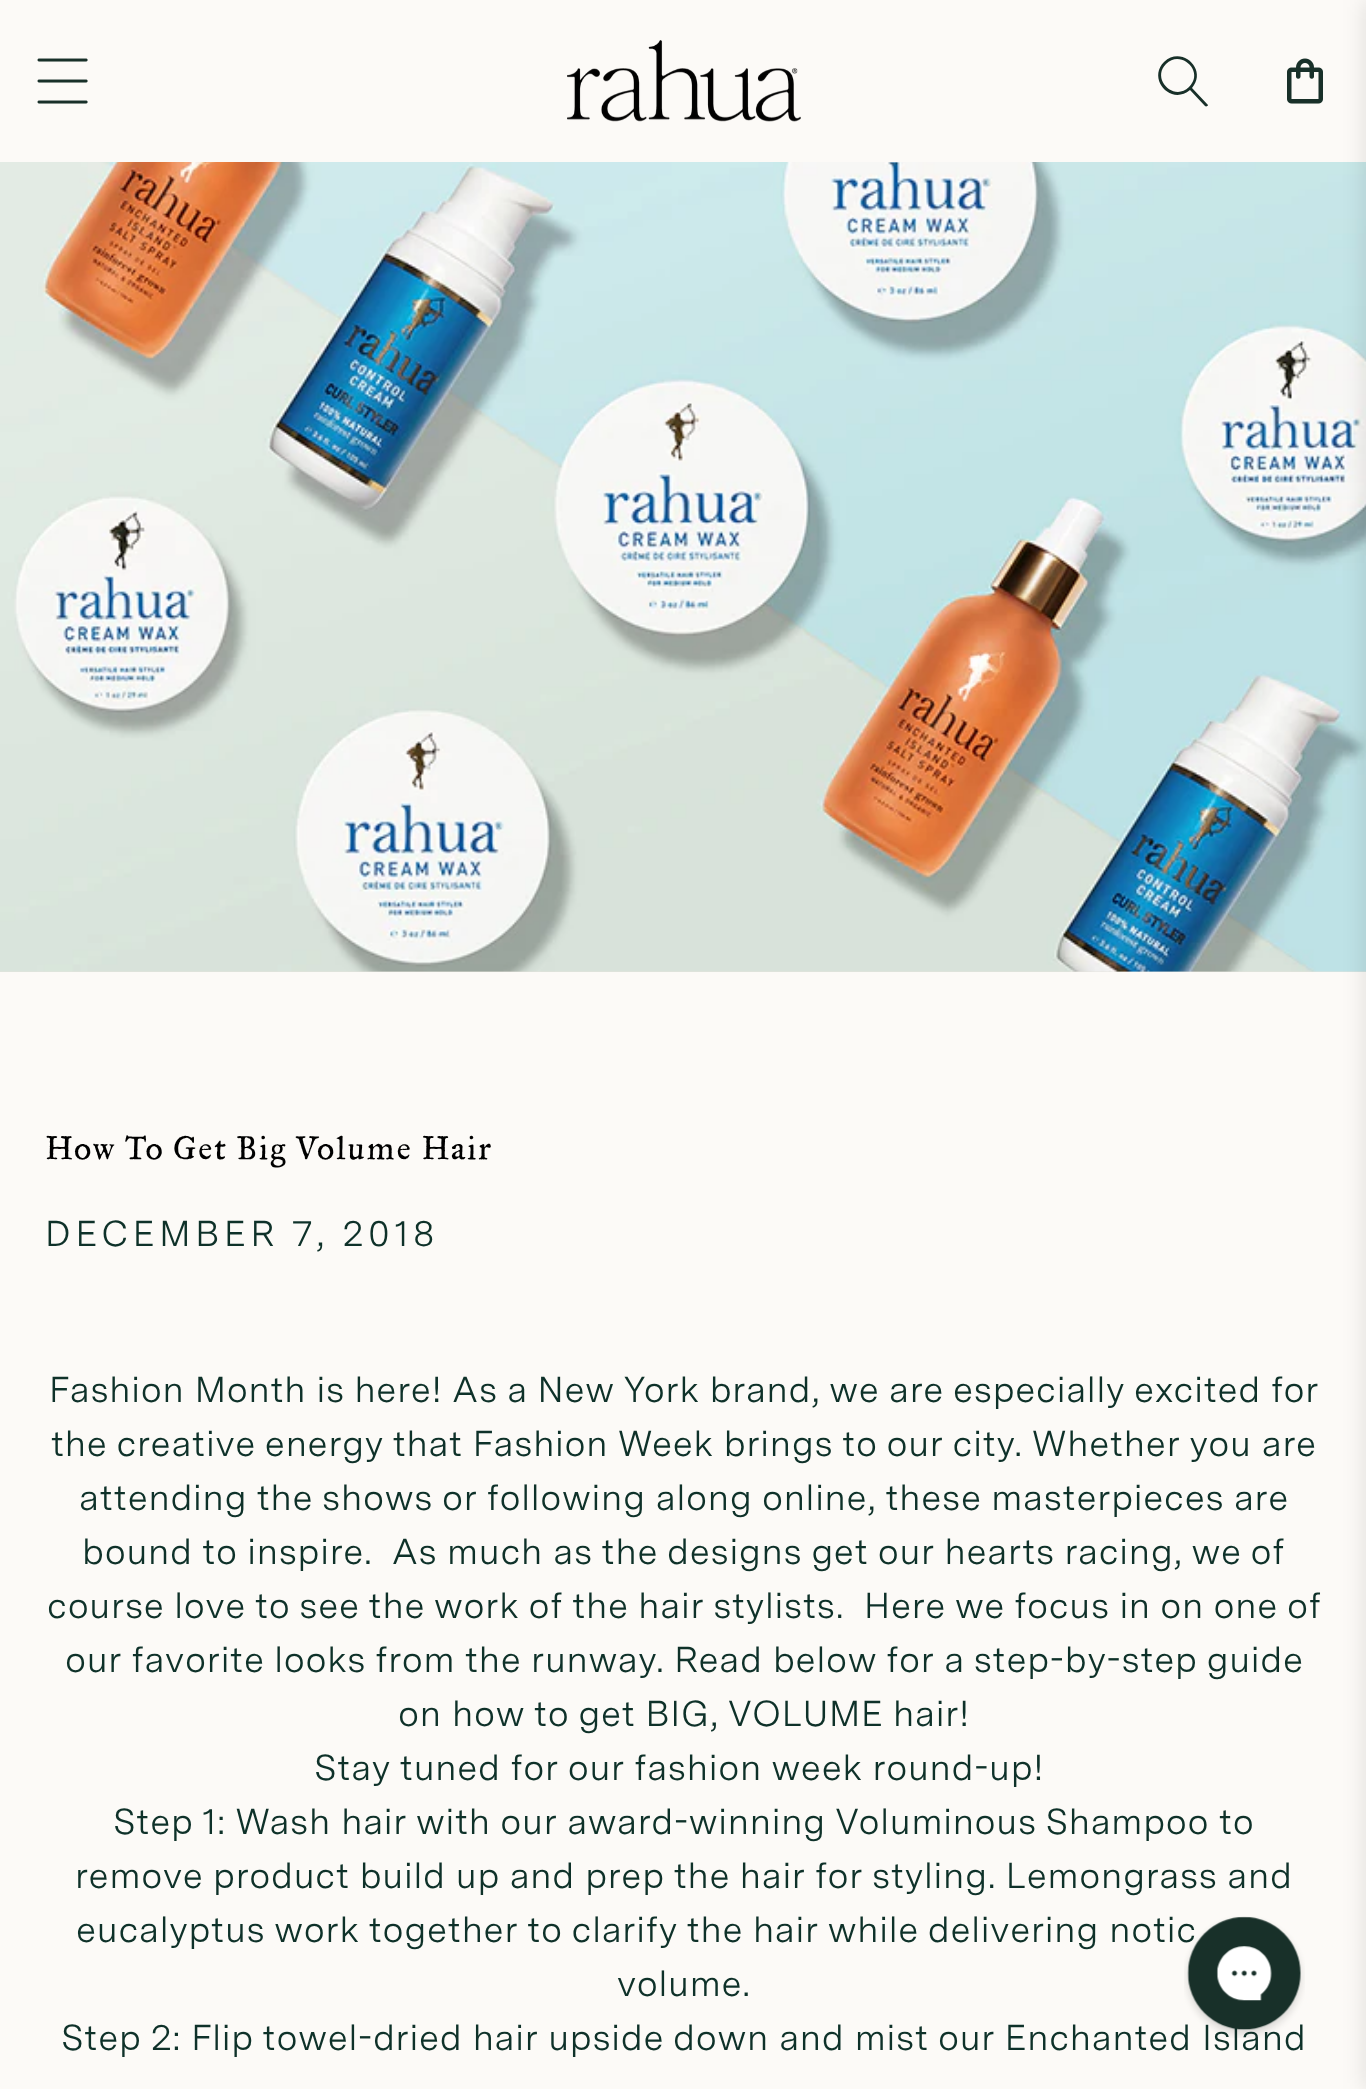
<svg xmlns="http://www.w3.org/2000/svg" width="1366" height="2089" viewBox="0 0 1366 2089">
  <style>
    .t1 { font: 300 36px 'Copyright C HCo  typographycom'; letter-spacing: 2.15px; fill: #000; }
    .t2 { font: 36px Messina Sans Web; letter-spacing: 4.7px; fill: #0e3129; }
    .t3 { font: 36px Messina Sans Web; letter-spacing: 0.72px; fill: #0e3129; }
  </style>
  <rect width="100%" height="100%" fill="#fcfaf7"/>
  <image x="37" y="58" width="51" height="46" href="images/1.png"/>
  <image x="567" y="40" width="234" height="82" href="images/2.png"/>
  <path d="M1189 87C1174 102 1151 79 1166 64C1181 49 1205 72 1189 87M1190 90C1171 106 1147 79 1164 62C1182 45 1208 70 1192 88L1208 105C1208 106 1206 107 1205 106Z" fill="#183029" fill-rule="evenodd"/>
  <image x="1287" y="58" width="36" height="46" href="images/3.png"/>
  <rect x="0" y="971" width="1366" height="1" fill="#e6e3dd"/>
  <image x="0" y="162" width="1366" height="810" href="images/4.png"/>
  <rect x="1364" y="0" width="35" height="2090" fill="#0000001a" filter="blur(11px)"/>
  <text x="45" y="1159" class="t1">How To Get Big Volume Hair</text>
  <text x="45" y="1246" class="t2">DECEMBER 7, 2018</text>
  <text x="49" y="1402" class="t3">Fashion Month is here! As a New York brand, we are especially excited for</text>
  <text x="51" y="1456" class="t3">the creative energy that Fashion Week brings to our city. Whether you are</text>
  <text x="79" y="1510" class="t3">attending the shows or following along online, these masterpieces are</text>
  <text x="82" y="1564" class="t3" xml:space="preserve">bound to inspire.  As much as the designs get our hearts racing, we of</text>
  <text x="47" y="1618" class="t3" xml:space="preserve">course love to see the work of the hair stylists.  Here we focus in on one of</text>
  <text x="65" y="1672" class="t3">our favorite looks from the runway. Read below for a step-by-step guide</text>
  <text x="398" y="1726" class="t3">on how to get BIG, VOLUME hair!</text>
  <text x="314" y="1780" class="t3">Stay tuned for our fashion week round-up!</text>
  <text x="113" y="1834" class="t3">Step 1: Wash hair with our award-winning</text>
  <text x="835" y="1834" word-spacing="-1" class="t3">Voluminous Shampoo</text>
  <text x="1219" y="1834" class="t3">to</text>
  <text x="75" y="1888" class="t3">remove product build up and prep the hair for styling. Lemongrass and</text>
  <text x="76" y="1942" class="t3">eucalyptus work together to clarify the hair while delivering notic</text>
  <text x="617" y="1996" class="t3">volume.</text>
  <text x="61" y="2050" class="t3">Step 2: Flip towel-dried hair upside down and mist our Enchanted Island</text>
  <image x="1184" y="1916" width="121" height="122" href="images/5.png"/>
</svg>
